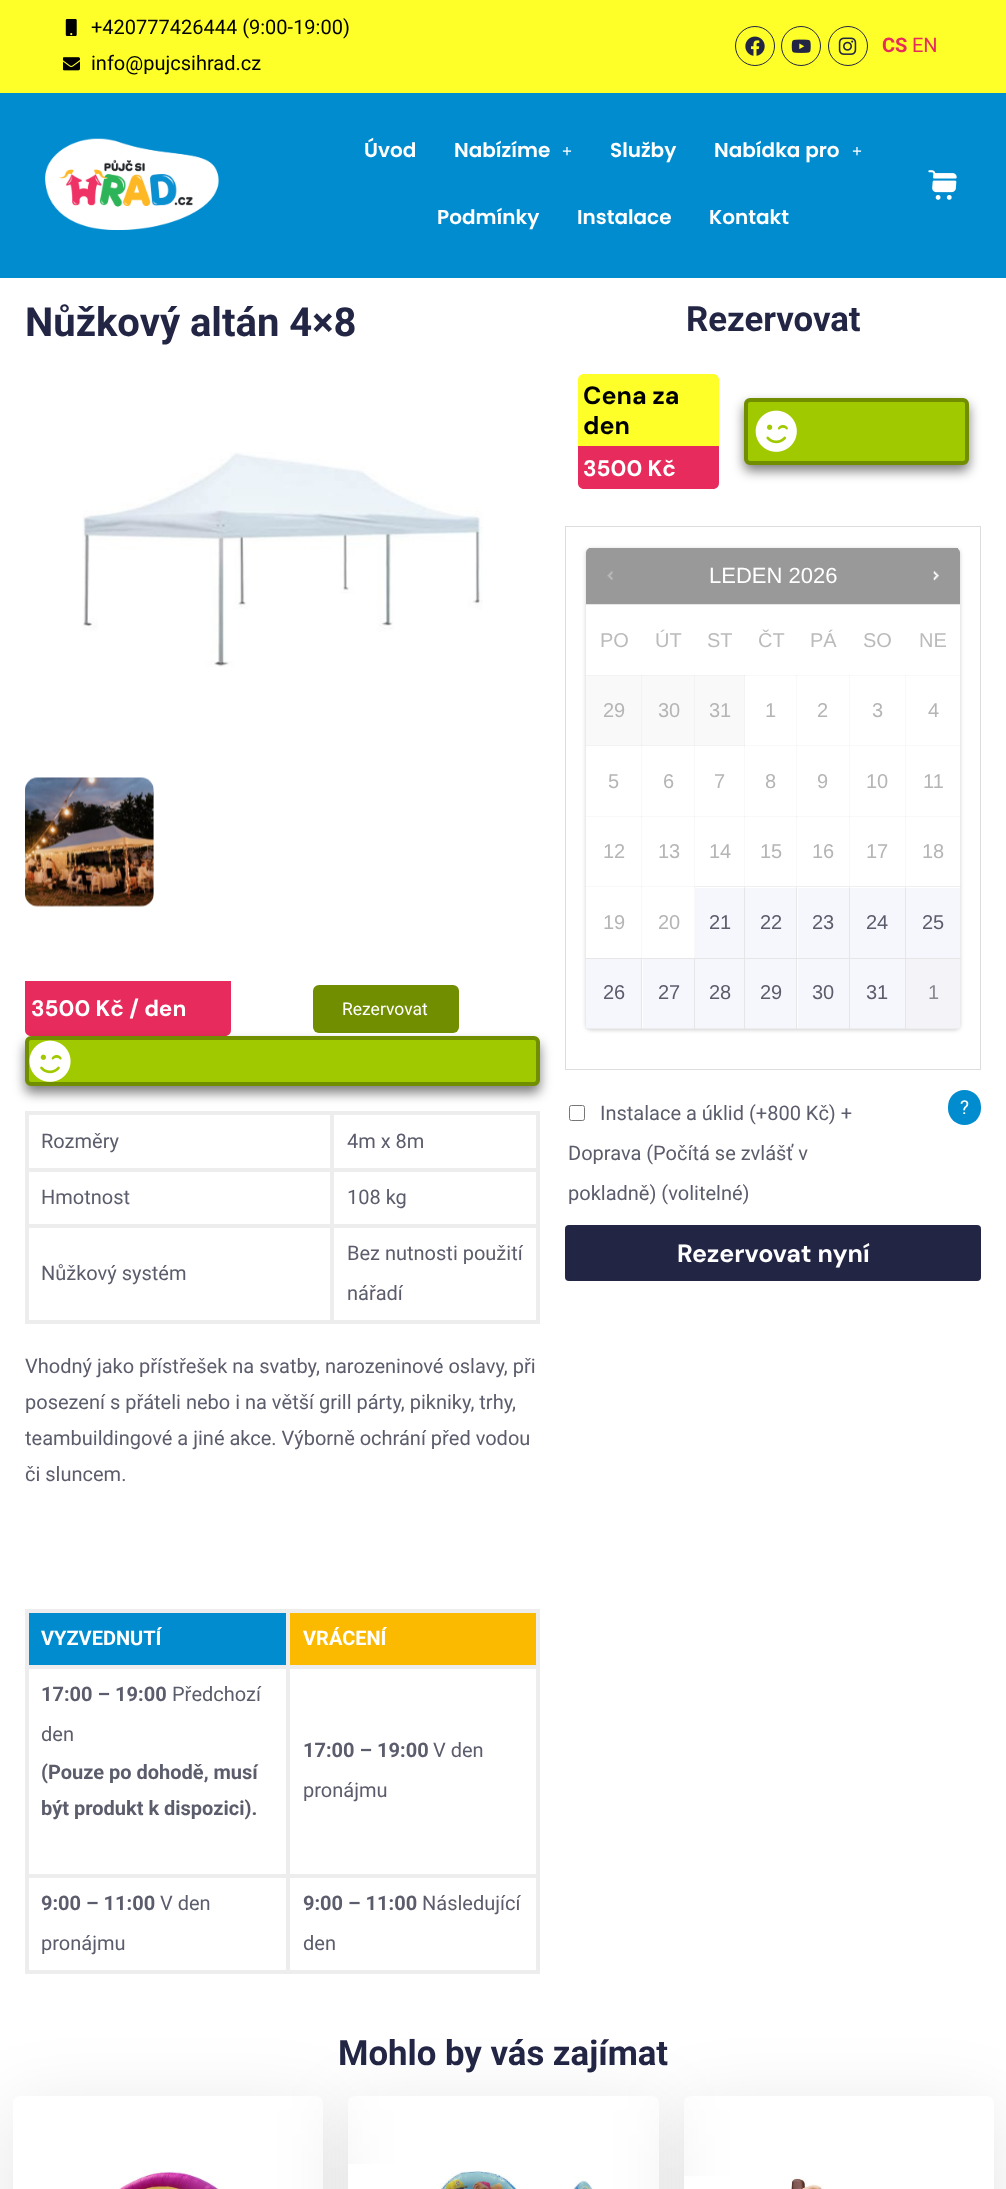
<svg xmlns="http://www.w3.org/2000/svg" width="1006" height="2189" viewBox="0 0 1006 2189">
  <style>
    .t1 { font: 20px Roboto; fill: #000; }
    .t2 { font: bold 20px Roboto; fill: #e72b5c; }
    .t3 { font: 20px Roboto; fill: #e72b5c; }
    .t4 { font: 600 20px Poppins; fill: #fff; }
    .t5 { font: bold 17.5px Liberation Serif; fill: #fff; }
    .t6 { font: bold 40px Roboto; fill: #232545; }
    .t7 { font: bold 22.5px DM Sans; fill: #fff; }
    .t8 { font: 17.5px Roboto; fill: #fff; }
    .t9 { font: 20px Roboto; fill: #5c5d6c; }
    .t10 { font: bold 20px Roboto; fill: #fff; }
    .t11 { font: bold 20px Roboto; fill: #5c5d6c; }
    .t12 { font: bold 34.75px Roboto; fill: #232545; }
    .t13 { font: bold 25px DM Sans; fill: #000; }
    .t14 { font: 22px Liberation Sans; fill: #fff; }
    .t15 { font: 20px Liberation Sans; fill: #bbb; }
    .t16 { font: 20px Liberation Sans; fill: #b5b5b5; }
    .t17 { font: 20px Liberation Sans; fill: #5c5d6c; }
    .t18 { font: 20px Liberation Sans; fill: #888993; }
    .t19 { font: 19px Roboto; fill: #fff; }
    .t20 { font: bold 25px DM Sans; fill: #fff; }
  </style>
  <defs>
    <clipPath id="clip1"><path d="M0 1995H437V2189H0ZM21 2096H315C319.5 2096 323 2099.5 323 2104V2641C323 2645.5 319.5 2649 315 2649H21C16.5 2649 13 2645.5 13 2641V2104C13 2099.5 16.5 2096 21 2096Z" clip-rule="evenodd"/></clipPath>
    <clipPath id="clip2"><path d="M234 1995H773V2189H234ZM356 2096H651C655.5 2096 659 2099.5 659 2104V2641C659 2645.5 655.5 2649 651 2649H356C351.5 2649 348 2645.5 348 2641V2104C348 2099.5 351.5 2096 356 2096Z" clip-rule="evenodd"/></clipPath>
    <clipPath id="clip3"><path d="M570 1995H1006V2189H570ZM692 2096H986C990.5 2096 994 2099.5 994 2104V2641C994 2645.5 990.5 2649 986 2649H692C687.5 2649 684 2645.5 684 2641V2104C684 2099.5 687.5 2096 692 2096Z" clip-rule="evenodd"/></clipPath>
  </defs>
  <rect width="100%" height="100%" fill="#fff"/>
  <rect x="0" y="0" width="1006" height="93" fill="#feff28"/>
  <image x="65" y="19" width="12" height="17" href="images/1.png"/>
  <text x="91" y="34" class="t1">+420777426444 (9:00-19:00)</text>
  <image x="63" y="57" width="17" height="14" href="images/2.png"/>
  <text x="91" y="70" class="t1">info@pujcsihrad.cz</text>
  <circle cx="755" cy="46" r="19.5" fill="none" stroke="#232545"/>
  <image x="745" y="36" width="20" height="20" href="images/3.png"/>
  <circle cx="801" cy="46" r="19.5" fill="none" stroke="#232545"/>
  <image x="791" y="39" width="20" height="14" href="images/4.png"/>
  <circle cx="848" cy="46" r="19.5" fill="none" stroke="#232545"/>
  <image x="838" y="37" width="19" height="18" href="images/5.png"/>
  <text x="882" y="52" class="t2">CS</text>
  <text x="912" y="52" class="t3">EN</text>
  <rect x="0" y="93" width="1006" height="185" fill="#008cce"/>
  <image x="45" y="138" width="174" height="92" href="images/6.png"/>
  <text x="364" y="157" class="t4">Úvod</text>
  <text x="454" y="157" class="t4">Nabízíme</text>
  <text x="562" y="157" class="t5">+</text>
  <text x="610" y="157" class="t4">Služby</text>
  <text x="714" y="157" class="t4">Nabídka pro</text>
  <text x="852" y="157" class="t5">+</text>
  <text x="437" y="224" class="t4">Podmínky</text>
  <text x="577" y="224" class="t4">Instalace</text>
  <text x="709" y="224" class="t4">Kontakt</text>
  <image x="928" y="170" width="29" height="30" href="images/7.png"/>
  <text x="25" y="336" class="t6">Nůžkový altán 4×8</text>
  <image x="82" y="452" width="401" height="215" href="images/8.png"/>
  <image x="25" y="777" width="129" height="130" href="images/9.png"/>
  <path d="M25 981H231V1030C231 1033.5 228.5 1036 225 1036H31C27.5 1036 25 1033.5 25 1030Z" fill="#e72b5c"/>
  <text x="31" y="1016" class="t7">3500 Kč / den</text>
  <rect x="313" y="985" width="146" height="48" rx="6" fill="#718d00"/>
  <text x="342" y="1015" class="t8">Rezervovat</text>
  <rect x="25" y="1043" width="515" height="50" rx="6" fill="#00000080" filter="blur(6px)"/>
  <rect x="27" y="1038" width="511" height="46" rx="4" fill="#a1c900" stroke="#718d00" stroke-width="4"/>
  <image x="29" y="1040" width="42" height="42" href="images/10.png"/>
  <rect x="330" y="1111" width="210" height="4" fill="#ededed"/>
  <rect x="330" y="1168" width="210" height="4" fill="#ededed"/>
  <rect x="330" y="1224" width="210" height="4" fill="#ededed"/>
  <rect x="536" y="1224" width="4" height="100" fill="#ededed"/>
  <rect x="330" y="1320" width="210" height="4" fill="#ededed"/>
  <rect x="330" y="1224" width="4" height="100" fill="#ededed"/>
  <rect x="25" y="1224" width="309" height="4" fill="#ededed"/>
  <rect x="330" y="1168" width="4" height="60" fill="#ededed"/>
  <rect x="25" y="1168" width="309" height="4" fill="#ededed"/>
  <rect x="330" y="1111" width="4" height="60" fill="#ededed"/>
  <rect x="25" y="1111" width="309" height="4" fill="#ededed"/>
  <rect x="25" y="1320" width="309" height="4" fill="#ededed"/>
  <rect x="25" y="1224" width="4" height="100" fill="#ededed"/>
  <rect x="25" y="1168" width="4" height="60" fill="#ededed"/>
  <rect x="25" y="1111" width="4" height="60" fill="#ededed"/>
  <text x="41" y="1148" class="t9">Rozměry</text>
  <rect x="536" y="1168" width="4" height="60" fill="#ededed"/>
  <rect x="536" y="1111" width="4" height="60" fill="#ededed"/>
  <text x="347" y="1148" class="t9">4m x 8m</text>
  <text x="41" y="1204" class="t9">Hmotnost</text>
  <text x="347" y="1204" class="t9">108 kg</text>
  <text x="41" y="1280" class="t9">Nůžkový systém</text>
  <text x="347" y="1260" class="t9">Bez nutnosti použití</text>
  <text x="347" y="1300" class="t9">nářadí</text>
  <text x="25" y="1373" class="t9">Vhodný jako přístřešek na svatby, narozeninové oslavy, při</text>
  <text x="25" y="1409" class="t9">posezení s přáteli nebo i na větší grill párty, pikniky, trhy,</text>
  <text x="25" y="1445" class="t9">teambuildingové a jiné akce. Výborně ochrání před vodou</text>
  <text x="25" y="1481" class="t9">či sluncem.</text>
  <rect x="29" y="1613" width="257" height="52" fill="#008cce"/>
  <rect x="286" y="1609" width="254" height="4" fill="#ededed"/>
  <rect x="286" y="1665" width="254" height="4" fill="#ededed"/>
  <rect x="286" y="1874" width="254" height="4" fill="#ededed"/>
  <rect x="536" y="1874" width="4" height="100" fill="#ededed"/>
  <rect x="286" y="1970" width="254" height="4" fill="#ededed"/>
  <rect x="286" y="1874" width="4" height="100" fill="#ededed"/>
  <rect x="25" y="1874" width="265" height="4" fill="#ededed"/>
  <rect x="286" y="1665" width="4" height="213" fill="#ededed"/>
  <rect x="25" y="1665" width="265" height="4" fill="#ededed"/>
  <rect x="286" y="1609" width="4" height="60" fill="#ededed"/>
  <rect x="25" y="1609" width="265" height="4" fill="#ededed"/>
  <rect x="25" y="1970" width="265" height="4" fill="#ededed"/>
  <rect x="25" y="1874" width="4" height="100" fill="#ededed"/>
  <rect x="25" y="1665" width="4" height="213" fill="#ededed"/>
  <rect x="25" y="1609" width="4" height="60" fill="#ededed"/>
  <text x="41" y="1645" class="t10">VYZVEDNUTÍ</text>
  <rect x="290" y="1613" width="246" height="52" fill="#fbb900"/>
  <rect x="536" y="1665" width="4" height="213" fill="#ededed"/>
  <rect x="536" y="1609" width="4" height="60" fill="#ededed"/>
  <text x="303" y="1645" class="t10">VRÁCENÍ</text>
  <text x="41" y="1701" class="t11">17:00 – 19:00</text>
  <text x="172" y="1701" class="t9">Předchozí</text>
  <text x="41" y="1741" class="t9">den</text>
  <text x="41" y="1779" class="t11">(Pouze po dohodě, musí</text>
  <text x="41" y="1815" class="t11">být produkt k dispozici).</text>
  <text x="303" y="1757" class="t11">17:00 – 19:00</text>
  <text x="433" y="1757" class="t9">V den</text>
  <text x="303" y="1797" class="t9">pronájmu</text>
  <text x="41" y="1910" class="t11">9:00 – 11:00</text>
  <text x="160" y="1910" class="t9">V den</text>
  <text x="41" y="1950" class="t9">pronájmu</text>
  <text x="303" y="1910" class="t11">9:00 – 11:00</text>
  <text x="422" y="1910" class="t9">Následující</text>
  <text x="303" y="1950" class="t9">den</text>
  <text x="686" y="331" class="t12">Rezervovat</text>
  <path d="M584 374H713C716.5 374 719 376.5 719 380V446H578V380C578 376.5 580.5 374 584 374Z" fill="#feff28"/>
  <text x="583" y="404" class="t13">Cena za</text>
  <text x="583" y="434" class="t13">den</text>
  <path d="M578 446H719V483C719 486.5 716.5 489 713 489H584C580.5 489 578 486.5 578 483Z" fill="#e72b5c"/>
  <text x="583" y="476" class="t7">3500 Kč</text>
  <rect x="744" y="404" width="225" height="67" rx="6" fill="#00000080" filter="blur(6px)"/>
  <rect x="746" y="400" width="221" height="63" rx="4" fill="#a1c900" stroke="#718d00" stroke-width="4"/>
  <image x="755" y="410" width="42" height="42" href="images/11.png"/>
  <rect x="565.5" y="526.5" width="415" height="543" fill="none" stroke="#ddd"/>
  <rect x="586" y="549" width="374" height="481" rx="5" fill="#00000030" filter="blur(2px)"/>
  <rect x="586" y="548" width="374" height="481" rx="5" fill="#fff"/>
  <rect x="694" y="886" width="1" height="2" fill="#f6f6f6"/>
  <rect x="694" y="888" width="1" height="70" fill="#f9f9f9"/>
  <rect x="641" y="886" width="54" height="1" fill="#f6f6f6"/>
  <path d="M591 548H955C958 548 960 550 960 553V604H586V553C586 550 588 548 591 548Z" fill="#999"/>
  <rect x="589" y="548" width="369" height="1" fill="#999"/>
  <image x="607" y="571" width="6" height="9" href="images/12.png"/>
  <text x="709" y="583" class="t14">LEDEN 2026</text>
  <image x="933" y="571" width="6" height="10" href="images/13.png"/>
  <rect x="586" y="1028" width="374" height="1" fill="#ededed"/>
  <text x="600" y="647" class="t15">PO</text>
  <text x="655" y="647" class="t15">ÚT</text>
  <text x="707" y="647" class="t15">ST</text>
  <text x="758" y="647" class="t15">ČT</text>
  <text x="810" y="647" class="t15">PÁ</text>
  <text x="863" y="647" class="t15">SO</text>
  <rect x="585" y="604" width="376" height="1" fill="#e6e6e6"/>
  <text x="919" y="647" class="t15">NE</text>
  <rect x="905" y="675" width="56" height="1" fill="#e6e6e659"/>
  <rect x="849" y="675" width="57" height="1" fill="#e6e6e659"/>
  <rect x="796" y="675" width="54" height="1" fill="#e6e6e659"/>
  <rect x="744" y="675" width="54" height="1" fill="#e6e6e659"/>
  <rect x="694" y="675" width="51" height="1" fill="#e6e6e659"/>
  <rect x="641" y="675" width="54" height="1" fill="#e6e6e659"/>
  <rect x="585" y="675" width="58" height="1" fill="#e6e6e659"/>
  <rect x="905" y="745" width="56" height="1" fill="#e6e6e659"/>
  <rect x="849" y="745" width="57" height="1" fill="#e6e6e659"/>
  <rect x="796" y="745" width="54" height="1" fill="#e6e6e659"/>
  <rect x="744" y="745" width="54" height="1" fill="#e6e6e659"/>
  <rect x="694" y="745" width="51" height="1" fill="#e6e6e659"/>
  <rect x="641" y="745" width="54" height="1" fill="#e6e6e659"/>
  <rect x="585" y="745" width="58" height="1" fill="#e6e6e659"/>
  <rect x="905" y="816" width="56" height="1" fill="#e6e6e659"/>
  <rect x="849" y="816" width="57" height="1" fill="#e6e6e659"/>
  <rect x="796" y="816" width="54" height="1" fill="#e6e6e659"/>
  <rect x="744" y="816" width="54" height="1" fill="#e6e6e659"/>
  <rect x="694" y="816" width="51" height="1" fill="#e6e6e659"/>
  <rect x="641" y="816" width="54" height="1" fill="#e6e6e659"/>
  <rect x="585" y="816" width="58" height="1" fill="#e6e6e659"/>
  <rect x="585" y="886" width="58" height="1" fill="#e6e6e659"/>
  <rect x="585" y="958" width="376" height="1" fill="#e6e6e6"/>
  <rect x="641" y="958" width="1" height="71" fill="#e6e6e6"/>
  <rect x="641" y="886" width="1" height="73" fill="#e6e6e659"/>
  <rect x="641" y="816" width="1" height="72" fill="#e6e6e659"/>
  <rect x="641" y="745" width="1" height="73" fill="#e6e6e659"/>
  <rect x="641" y="675" width="1" height="71" fill="#e6e6e659"/>
  <rect x="586" y="675" width="57" height="71" fill="#eeeeee59"/>
  <text x="603" y="717" class="t16">29</text>
  <rect x="694" y="886" width="267" height="1" fill="#e6e6e6"/>
  <rect x="694" y="816" width="1" height="72" fill="#e6e6e659"/>
  <rect x="694" y="745" width="1" height="73" fill="#e6e6e659"/>
  <rect x="694" y="675" width="1" height="71" fill="#e6e6e659"/>
  <rect x="643" y="675" width="52" height="71" fill="#eeeeee59"/>
  <text x="658" y="717" class="t16">30</text>
  <rect x="744" y="958" width="1" height="71" fill="#e6e6e6"/>
  <rect x="744" y="886" width="1" height="73" fill="#e6e6e6"/>
  <rect x="744" y="816" width="1" height="72" fill="#e6e6e659"/>
  <rect x="744" y="745" width="1" height="73" fill="#e6e6e659"/>
  <rect x="744" y="675" width="1" height="71" fill="#e6e6e659"/>
  <rect x="695" y="675" width="50" height="71" fill="#eeeeee59"/>
  <text x="709" y="717" class="t16">31</text>
  <rect x="796" y="958" width="1" height="71" fill="#e6e6e6"/>
  <rect x="796" y="886" width="1" height="73" fill="#e6e6e6"/>
  <rect x="796" y="816" width="1" height="72" fill="#e6e6e659"/>
  <rect x="796" y="745" width="1" height="73" fill="#e6e6e659"/>
  <rect x="796" y="675" width="1" height="71" fill="#e6e6e659"/>
  <rect x="745" y="675" width="51" height="71" fill="#fefefe59"/>
  <text x="765" y="717" class="t16">1</text>
  <rect x="849" y="958" width="1" height="71" fill="#e6e6e6"/>
  <rect x="849" y="886" width="1" height="73" fill="#e6e6e6"/>
  <rect x="849" y="816" width="1" height="72" fill="#e6e6e659"/>
  <rect x="849" y="745" width="1" height="73" fill="#e6e6e659"/>
  <rect x="849" y="675" width="1" height="71" fill="#e6e6e659"/>
  <rect x="796" y="675" width="53" height="71" fill="#fefefe59"/>
  <text x="817" y="717" class="t16">2</text>
  <rect x="905" y="958" width="1" height="71" fill="#e6e6e6"/>
  <rect x="905" y="886" width="1" height="73" fill="#e6e6e6"/>
  <rect x="905" y="816" width="1" height="72" fill="#e6e6e659"/>
  <rect x="905" y="745" width="1" height="73" fill="#e6e6e659"/>
  <rect x="905" y="675" width="1" height="71" fill="#e6e6e659"/>
  <rect x="849" y="675" width="56" height="71" fill="#fefefe59"/>
  <text x="872" y="717" class="t16">3</text>
  <rect x="905" y="675" width="55" height="71" fill="#fefefe59"/>
  <text x="928" y="717" class="t16">4</text>
  <rect x="641" y="746" width="1" height="70" fill="#fefefe59"/>
  <text x="608" y="788" class="t16">5</text>
  <rect x="694" y="746" width="1" height="70" fill="#fefefe59"/>
  <text x="663" y="788" class="t16">6</text>
  <rect x="744" y="746" width="1" height="70" fill="#fefefe59"/>
  <text x="714" y="788" class="t16">7</text>
  <text x="765" y="788" class="t16">8</text>
  <rect x="796" y="746" width="1" height="70" fill="#fefefe59"/>
  <text x="817" y="788" class="t16">9</text>
  <rect x="849" y="746" width="1" height="70" fill="#fefefe59"/>
  <text x="866" y="788" class="t16">10</text>
  <rect x="905" y="746" width="1" height="70" fill="#fefefe59"/>
  <text x="923" y="788" class="t16">11</text>
  <rect x="586" y="816" width="57" height="72" fill="#fefefe59"/>
  <text x="603" y="858" class="t16">12</text>
  <rect x="643" y="816" width="52" height="72" fill="#fefefe59"/>
  <text x="658" y="858" class="t16">13</text>
  <rect x="695" y="816" width="50" height="72" fill="#fefefe59"/>
  <text x="709" y="858" class="t16">14</text>
  <rect x="745" y="816" width="51" height="71" fill="#fefefe59"/>
  <text x="760" y="858" class="t16">15</text>
  <rect x="796" y="816" width="53" height="72" fill="#fefefe59"/>
  <text x="812" y="858" class="t16">16</text>
  <rect x="849" y="816" width="56" height="72" fill="#fefefe59"/>
  <text x="866" y="858" class="t16">17</text>
  <rect x="905" y="816" width="55" height="72" fill="#fefefe59"/>
  <text x="922" y="858" class="t16">18</text>
  <rect x="641" y="888" width="1" height="70" fill="#fefefe59"/>
  <text x="603" y="929" class="t16">19</text>
  <text x="658" y="929" class="t16">20</text>
  <rect x="695" y="888" width="49" height="70" fill="#f6f7fc"/>
  <text x="709" y="929" class="t17">21</text>
  <rect x="745" y="888" width="51" height="70" fill="#f6f7fc"/>
  <text x="760" y="929" class="t17">22</text>
  <rect x="798" y="888" width="51" height="70" fill="#f6f7fc"/>
  <text x="812" y="929" class="t17">23</text>
  <rect x="850" y="888" width="55" height="70" fill="#f6f7fc"/>
  <text x="866" y="929" class="t17">24</text>
  <rect x="906" y="888" width="54" height="70" fill="#f6f7fc"/>
  <text x="922" y="929" class="t17">25</text>
  <rect x="586" y="959" width="55" height="69" fill="#f6f7fc"/>
  <text x="603" y="999" class="t17">26</text>
  <rect x="694" y="958" width="1" height="71" fill="#e6e6e6"/>
  <rect x="643" y="959" width="51" height="69" fill="#f6f7fc"/>
  <text x="658" y="999" class="t17">27</text>
  <rect x="695" y="959" width="49" height="69" fill="#f6f7fc"/>
  <text x="709" y="999" class="t17">28</text>
  <rect x="745" y="959" width="51" height="69" fill="#f6f7fc"/>
  <text x="760" y="999" class="t17">29</text>
  <rect x="798" y="959" width="51" height="69" fill="#f6f7fc"/>
  <text x="812" y="999" class="t17">30</text>
  <rect x="850" y="959" width="55" height="69" fill="#f6f7fc"/>
  <text x="866" y="999" class="t17">31</text>
  <rect x="906" y="959" width="54" height="69" fill="#f4f4f8"/>
  <text x="928" y="999" class="t18">1</text>
  <rect x="569.5" y="1105.5" width="15" height="15" rx="2" fill="none" stroke="#767676"/>
  <text x="600" y="1120" class="t9">Instalace a úklid (+800 Kč) +</text>
  <text x="568" y="1160" class="t9">Doprava (Počítá se zvlášť v</text>
  <text x="568" y="1200" class="t9">pokladně) (volitelné)</text>
  <rect x="948" y="1090" width="33" height="35" rx="16.5" fill="#008cce"/>
  <text x="960" y="1114" class="t19">?</text>
  <rect x="565" y="1225" width="416" height="56" rx="4" fill="#232545"/>
  <text x="677" y="1262" class="t20">Rezervovat nyní</text>
  <g clip-path="url(#clip1)">
    <rect x="13" y="2109" width="310" height="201" rx="8" fill="#0000001a" filter="blur(37.5px)"/>
  </g>
  <image x="119" y="2170" width="100" height="19" href="images/14.png"/>
  <g clip-path="url(#clip2)">
    <rect x="348" y="2109" width="311" height="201" rx="8" fill="#0000001a" filter="blur(37.5px)"/>
  </g>
  <image x="348" y="2164" width="246" height="25" href="images/15.png"/>
  <g clip-path="url(#clip3)">
    <rect x="684" y="2109" width="310" height="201" rx="8" fill="#0000001a" filter="blur(37.5px)"/>
  </g>
  <image x="684" y="2176" width="140" height="13" href="images/16.png"/>
  <text x="338" y="2065" class="t12">Mohlo by vás zajímat</text>
</svg>
